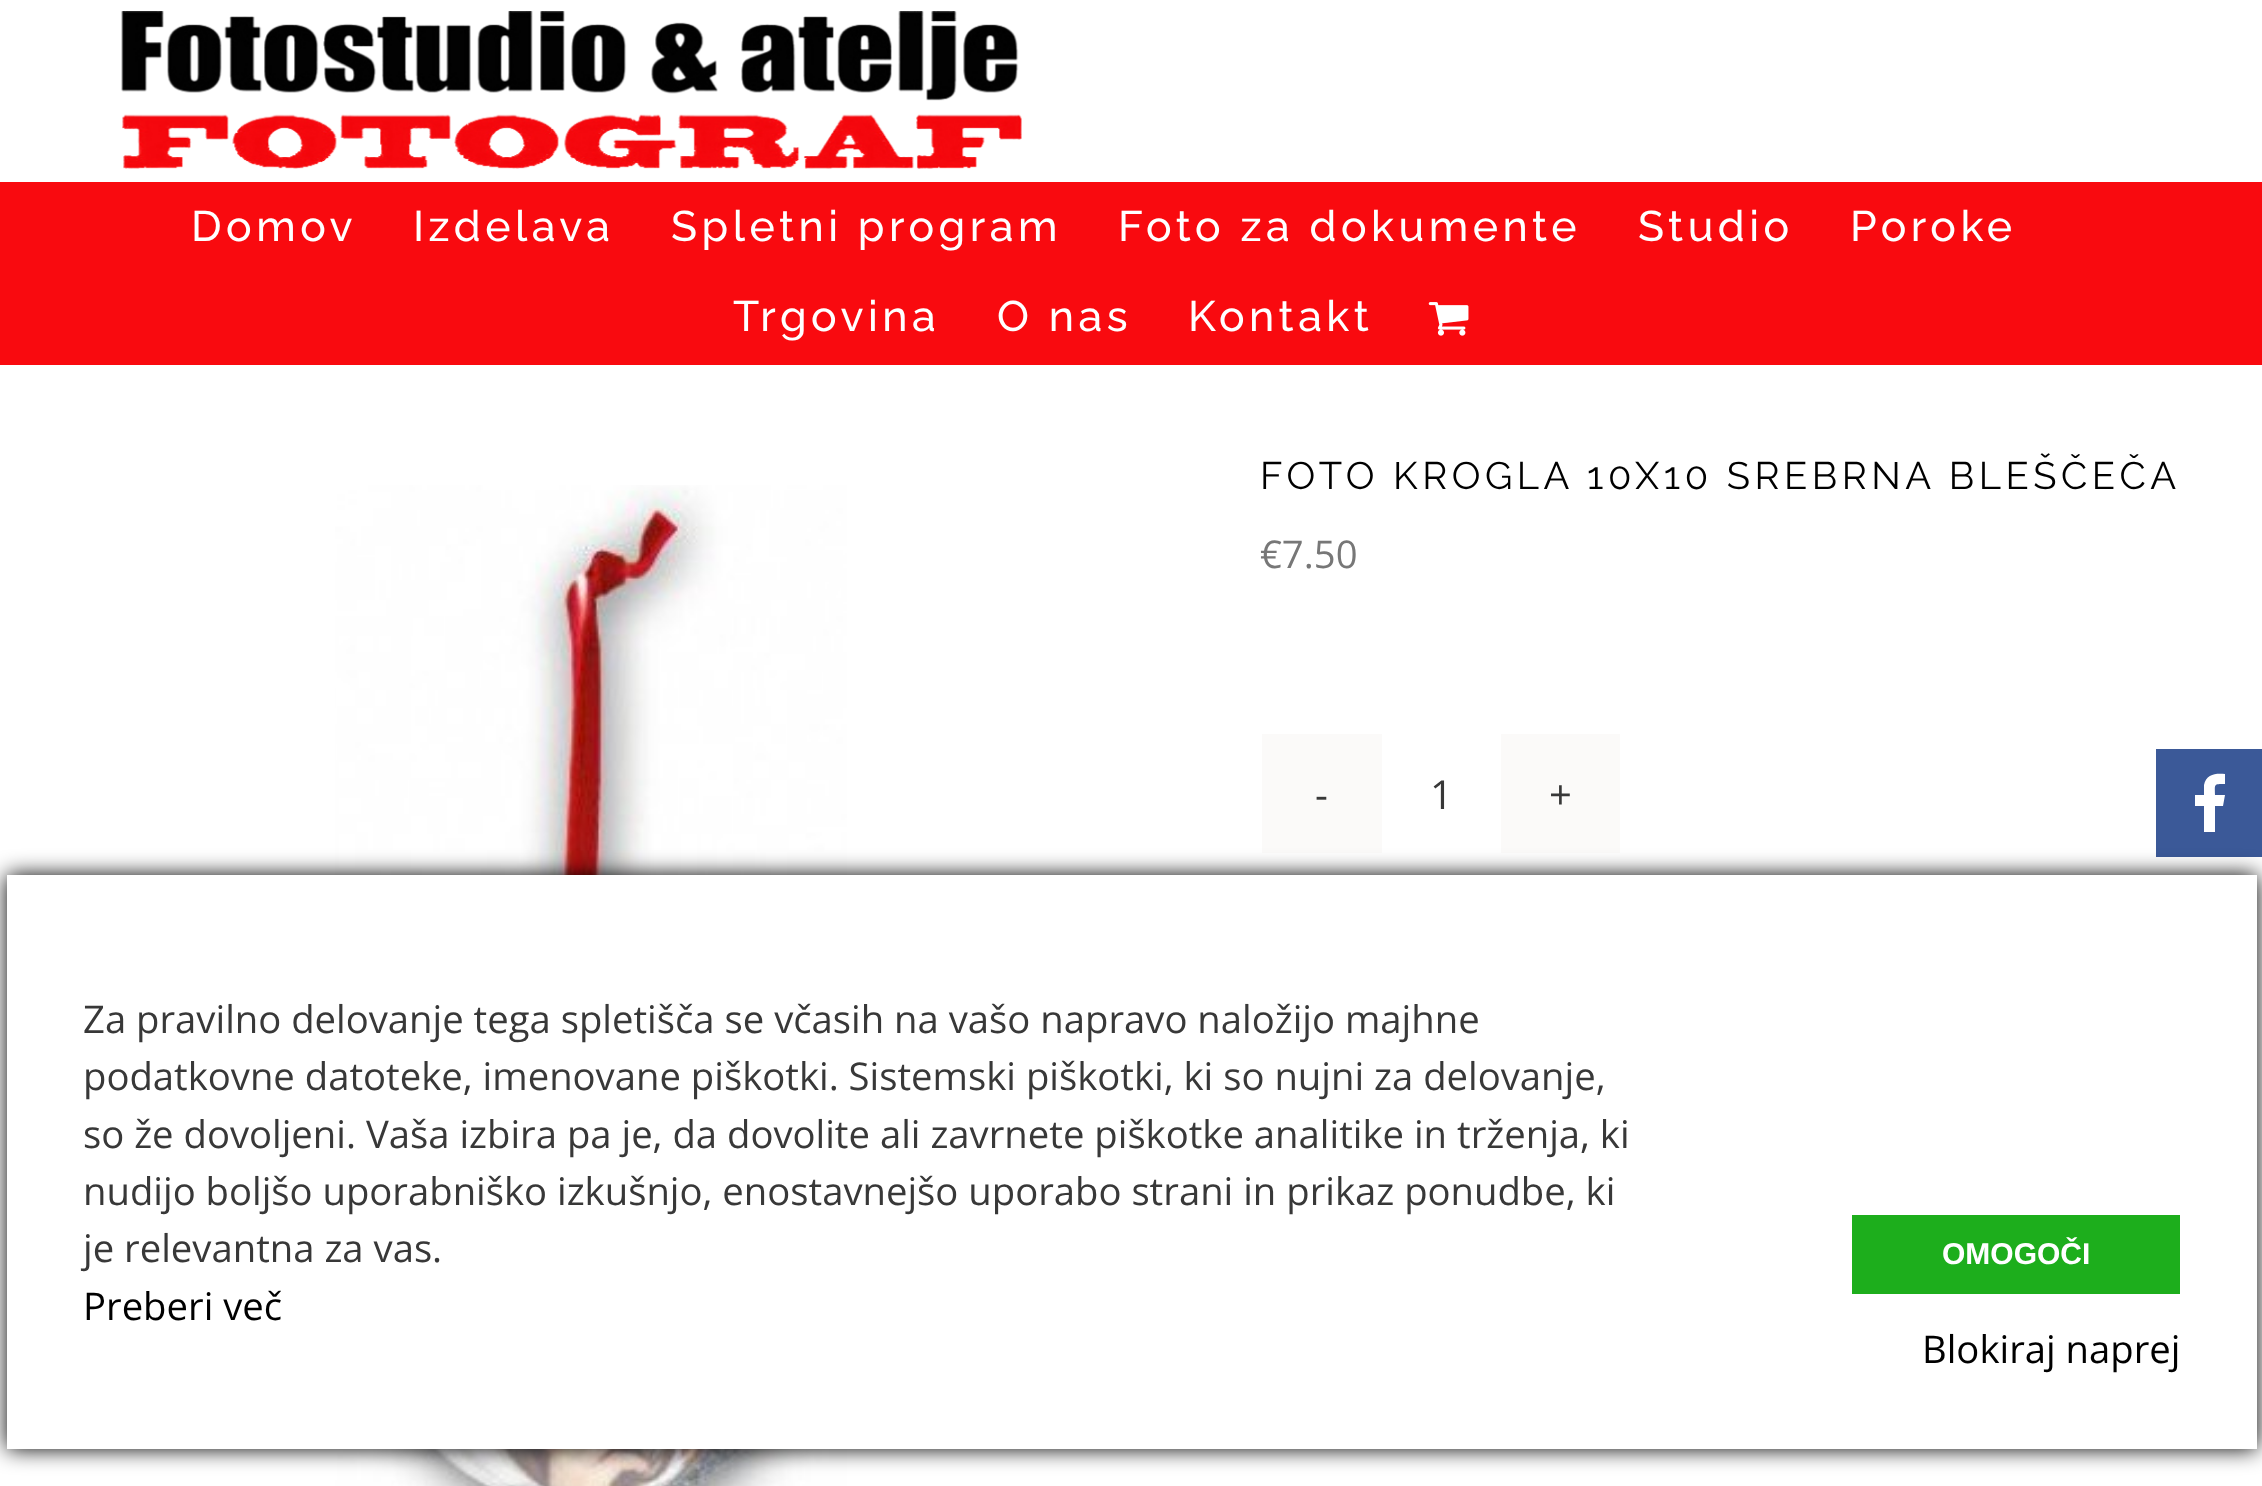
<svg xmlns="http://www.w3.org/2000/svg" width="2262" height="1486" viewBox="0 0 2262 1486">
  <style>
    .t1 { font: 500 42.75px Raleway; letter-spacing: 4.5px; fill: #fff; }
    .t2 { font: 38.25px Raleway; letter-spacing: 4.5px; fill: #000; }
    .t3 { font: 38.25px Open Sans; fill: #777; }
    .t4 { font: 40px Open Sans; fill: #383838; }
    .t5 { font: 38.25px Open Sans; fill: #383838; }
    .t6 { font: 38.25px Open Sans; fill: #000; }
    .t7 { font: bold 30px Liberation Sans; fill: #fff; }
  </style>
  <rect width="100%" height="100%" fill="#fff"/>
  <image x="121" y="11" width="901" height="158" href="images/1.png"/>
  <rect x="0" y="182" width="2262" height="183" fill="#f90a0f"/>
  <text x="191" y="241" class="t1">Domov</text>
  <text x="413" y="241" class="t1">Izdelava</text>
  <text x="671" y="241" class="t1">Spletni program</text>
  <text x="1118" y="241" class="t1">Foto za dokumente</text>
  <text x="1638" y="241" class="t1">Studio</text>
  <text x="1850" y="241" class="t1">Poroke</text>
  <text x="733" y="331" class="t1">Trgovina</text>
  <text x="997" y="331" class="t1">O nas</text>
  <text x="1188" y="331" class="t1">Kontakt</text>
  <image x="1428" y="302" width="41" height="34" href="images/2.png"/>
  <image x="335" y="485" width="512" height="1001" href="images/3.png"/>
  <text x="1260" y="489" class="t2">FOTO KROGLA 10X10 SREBRNA BLEŠČEČA</text>
  <text x="1260" y="568" class="t3">€7.50</text>
  <rect x="1262" y="734" width="120" height="119" fill="#fbfaf9"/>
  <text x="1315" y="809" class="t4">-</text>
  <text x="1430" y="809" class="t4">1</text>
  <rect x="1501" y="734" width="119" height="119" fill="#fbfaf9"/>
  <text x="1549" y="809" class="t4">+</text>
  <rect x="2156" y="749" width="106" height="108" fill="#3b5998"/>
  <path d="M2225 774V784C2213 784 2215 784 2215 795H2225L2223 806H2215V832H2204V806H2195V795H2204V785C2206 774 2216 773 2225 774Z" fill="#fff"/>
  <rect x="7" y="875" width="2250" height="574" fill="#000" filter="blur(11px)"/>
  <rect x="7" y="875" width="2250" height="574" fill="#fff"/>
  <text x="83" y="1033" class="t5">Za pravilno delovanje tega spletišča se včasih na vašo napravo naložijo majhne</text>
  <text x="83" y="1090" class="t5">podatkovne datoteke, imenovane piškotki. Sistemski piškotki, ki so nujni za delovanje,</text>
  <text x="83" y="1148" class="t5">so že dovoljeni. Vaša izbira pa je, da dovolite ali zavrnete piškotke analitike in trženja, ki</text>
  <text x="83" y="1205" class="t5">nudijo boljšo uporabniško izkušnjo, enostavnejšo uporabo strani in prikaz ponudbe, ki</text>
  <text x="83" y="1262" class="t5">je relevantna za vas.</text>
  <text x="83" y="1320" class="t6">Preberi več</text>
  <rect x="1852" y="1215" width="328" height="79" fill="#1dae1c"/>
  <text x="1942" y="1264" class="t7">OMOGOČI</text>
  <text x="1922" y="1363" class="t6">Blokiraj naprej</text>
</svg>
